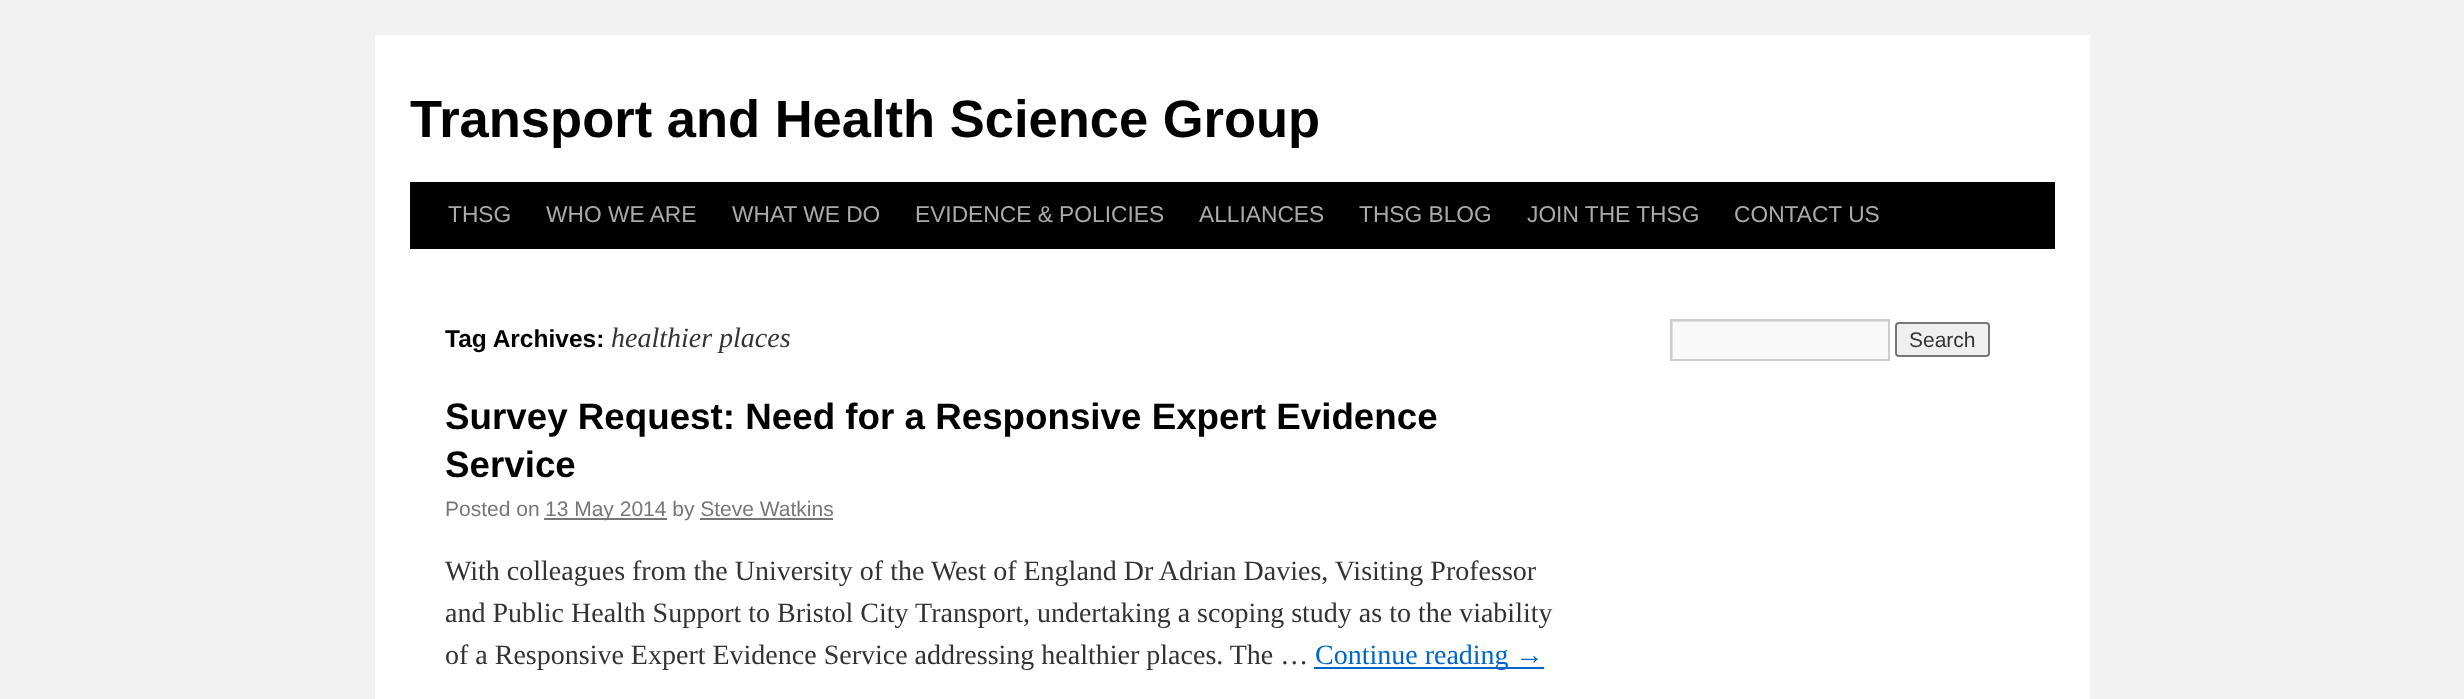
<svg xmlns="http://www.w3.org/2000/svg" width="2464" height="699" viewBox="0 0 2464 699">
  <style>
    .t1 { font: bold 52.5px Liberation Sans; fill: #000; }
    .t2 { font: 22.75px Liberation Sans; fill: #aaa; }
    .t3 { font: bold 24.5px Liberation Sans; fill: #000; }
    .t4 { font: italic 28px Liberation Serif; fill: #333; }
    .t5 { font: bold 36.75px Liberation Sans; fill: #000; }
    .t6 { font: 21px Liberation Sans; fill: #777; }
    .t7 { font: 28px Liberation Serif; fill: #333; }
    .t8 { font: 28px Liberation Serif; fill: #06c; }
    .t9 { font: 21px Liberation Sans; fill: #333; }
  </style>
  <defs>
    <clipPath id="clip1"><rect x="1671" y="320" width="217" height="39"/></clipPath>
  </defs>
  <rect width="100%" height="100%" fill="#f1f1f1"/>
  <rect x="375" y="35" width="1715" height="664" fill="#fff"/>
  <text x="410" y="137" class="t1">Transport and Health Science Group</text>
  <rect x="410" y="182" width="1645" height="67" fill="#000"/>
  <text x="448" y="222" class="t2">THSG</text>
  <text x="546" y="222" class="t2">WHO WE ARE</text>
  <text x="732" y="222" class="t2">WHAT WE DO</text>
  <text x="915" y="222" class="t2">EVIDENCE &amp; POLICIES</text>
  <text x="1199" y="222" class="t2">ALLIANCES</text>
  <text x="1359" y="222" class="t2">THSG BLOG</text>
  <text x="1527" y="222" class="t2">JOIN THE THSG</text>
  <text x="1734" y="222" class="t2">CONTACT US</text>
  <text x="445" y="347" class="t3">Tag Archives:</text>
  <text x="611" y="347" class="t4">healthier places</text>
  <text x="445" y="429" class="t5">Survey Request: Need for a Responsive Expert Evidence</text>
  <text x="445" y="477" class="t5">Service</text>
  <text x="445" y="516" class="t6">Posted on</text>
  <rect x="544" y="518" width="123" height="2" fill="#777"/>
  <text x="545" y="516" class="t6">13 May 2014 by Steve Watkins</text>
  <rect x="700" y="518" width="133" height="2" fill="#777"/>
  <text x="445" y="580" class="t7">With colleagues from the University of the West of England Dr Adrian Davies, Visiting Professor</text>
  <text x="445" y="622" class="t7">and Public Health Support to Bristol City Transport, undertaking a scoping study as to the viability</text>
  <text x="445" y="664" class="t7">of a Responsive Expert Evidence Service addressing healthier places. The …</text>
  <rect x="1314" y="667" width="230" height="2" fill="#06c"/>
  <text x="1315" y="664" class="t8">Continue reading →</text>
  <rect x="1673" y="322" width="215" height="37" fill="#f9f9f9"/>
  <g clip-path="url(#clip1)">
    <path d="M1498 147H2062V532H1498ZM1673 322H1890V360H1673Z" fill="#e0e0e0" fill-rule="evenodd"/>
  </g>
  <rect x="1671" y="320" width="218" height="40" fill="none" stroke="#ccc" stroke-width="2"/>
  <rect x="1896" y="323" width="93" height="33" rx="3" fill="#efefef" stroke="#767676" stroke-width="2"/>
  <text x="1909" y="347" class="t9">Search</text>
</svg>
